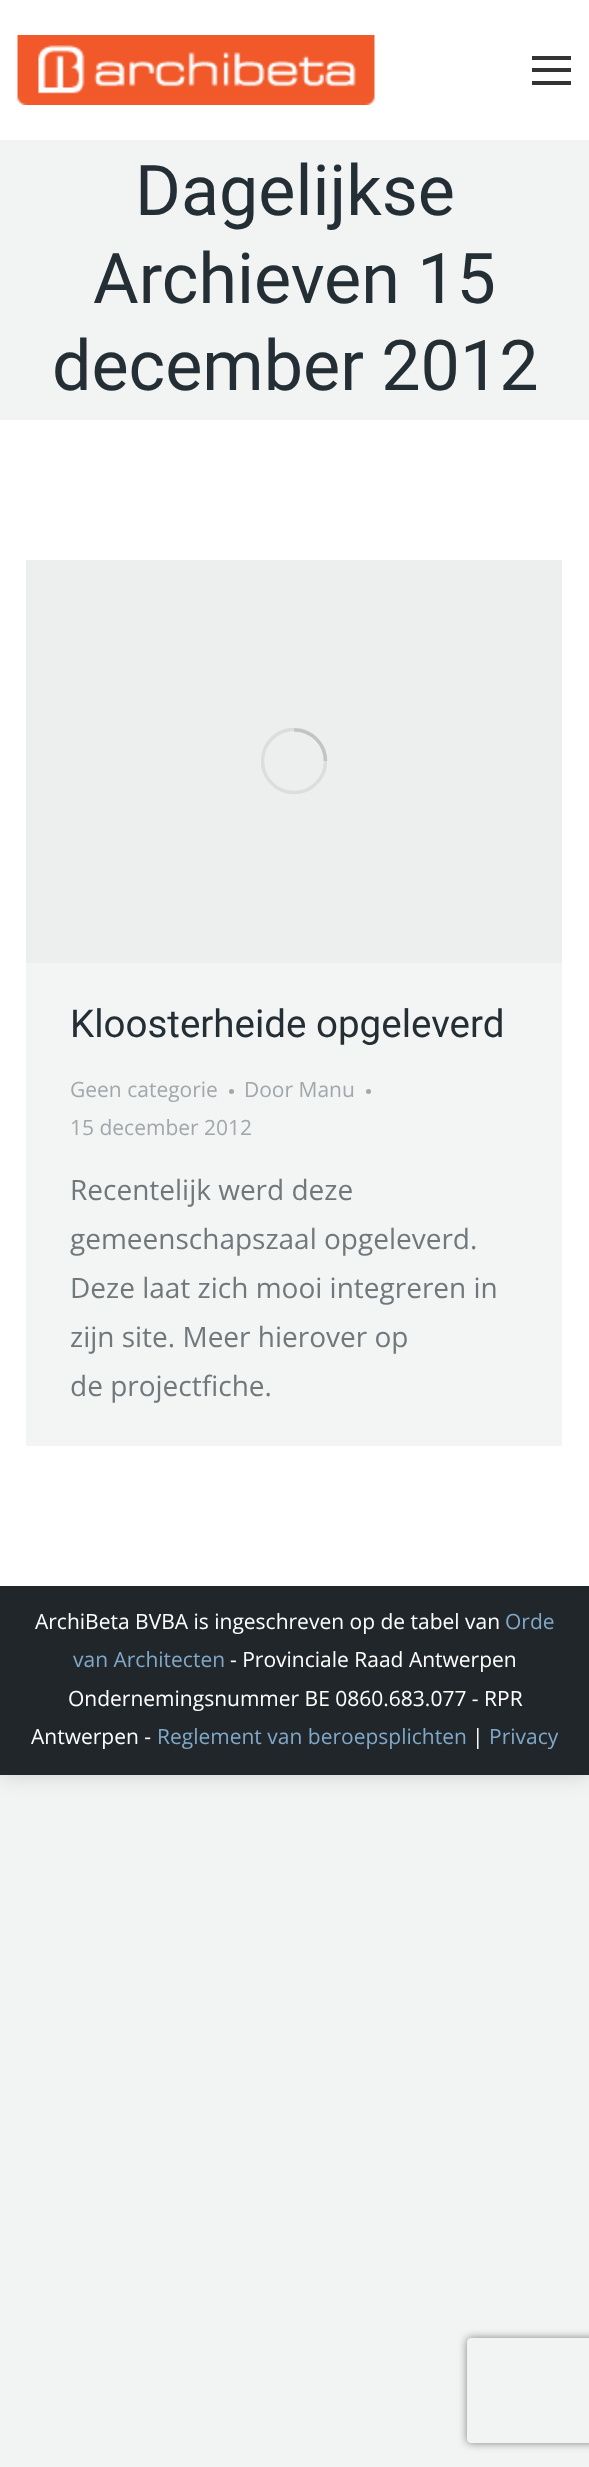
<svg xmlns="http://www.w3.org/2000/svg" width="589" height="2467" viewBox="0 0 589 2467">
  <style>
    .t1 { font: 70px Roboto; fill: #242e35; }
    .t2 { font: 38.5px Roboto; fill: #242e35; }
    .t3 { font: 21px Open Sans; fill: #a1a7ab; }
    .t4 { font: 28px Open Sans; fill: #71787c; }
    .t5 { font: 21px Open Sans; fill: #fff; }
    .t6 { font: 21px Open Sans; fill: #80a8c9; }
  </style>
  <defs>
    <clipPath id="clip1"><rect x="261" y="728" width="66" height="67"/></clipPath>
    <clipPath id="clip2"><path d="M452 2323H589V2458H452ZM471 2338H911C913 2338 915 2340 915 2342V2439C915 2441 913 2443 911 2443H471C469 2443 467 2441 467 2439V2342C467 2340 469 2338 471 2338Z" clip-rule="evenodd"/></clipPath>
  </defs>
  <rect width="100%" height="100%" fill="#f2f3f3"/>
  <rect x="0" y="0" width="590" height="1775" fill="#00000026" filter="blur(10.5px)"/>
  <rect x="0" y="0" width="589" height="1586" fill="#fff"/>
  <image x="17" y="35" width="358" height="70" href="images/1.png"/>
  <rect x="532" y="56" width="39" height="4" fill="#333"/>
  <rect x="532" y="68" width="39" height="4" fill="#333"/>
  <rect x="532" y="81" width="39" height="4" fill="#333"/>
  <rect x="0" y="140" width="589" height="280" fill="#f2f3f3"/>
  <text x="135" y="215" class="t1">Dagelijkse</text>
  <text x="93" y="303" class="t1">Archieven 15</text>
  <text x="52" y="390" class="t1">december 2012</text>
  <rect x="26" y="963" width="536" height="483" fill="#f3f4f4"/>
  <rect x="26" y="560" width="536" height="403" fill="#edeeee"/>
  <g clip-path="url(#clip1)">
    <circle cx="294" cy="761" r="31.5" fill="none" stroke="#dcdede" stroke-width="3.5"/>
  </g>
  <path d="M325.5 761C325.5 744 311.5 730 294 730" fill="none" stroke="#71787c40" stroke-width="3.5"/>
  <text x="70" y="1037" class="t2">Kloosterheide opgeleverd</text>
  <text x="70" y="1097" class="t3">Geen categorie</text>
  <circle cx="231.5" cy="1091.5" r="2.5" fill="#a1a7ab"/>
  <text x="244" y="1097" class="t3">Door Manu</text>
  <circle cx="368.5" cy="1091.5" r="2.5" fill="#a1a7ab"/>
  <text x="70" y="1135" class="t3">15 december 2012</text>
  <text x="70" y="1200" class="t4">Recentelijk werd deze</text>
  <text x="70" y="1249" class="t4">gemeenschapszaal opgeleverd.</text>
  <text x="70" y="1298" class="t4">Deze laat zich mooi integreren in</text>
  <text x="70" y="1347" class="t4">zijn site. Meer hierover op</text>
  <text x="70" y="1396" class="t4">de projectfiche.</text>
  <rect x="0" y="1586" width="589" height="189" fill="#20262a"/>
  <text x="35" y="1629" class="t5">ArchiBeta BVBA is ingeschreven op de tabel van</text>
  <text x="505" y="1629" class="t6">Orde</text>
  <text x="73" y="1667" class="t6">van Architecten</text>
  <text x="230" y="1667" class="t5">- Provinciale Raad Antwerpen</text>
  <text x="68" y="1706" class="t5">Ondernemingsnummer BE 0860.683.077 - RPR</text>
  <text x="31" y="1744" class="t5">Antwerpen -</text>
  <text x="157" y="1744" class="t6">Reglement van beroepsplichten</text>
  <text x="472" y="1744" class="t5">|</text>
  <text x="489" y="1744" class="t6">Privacy</text>
  <g clip-path="url(#clip2)">
    <rect x="467" y="2338" width="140" height="105" rx="4" fill="#808080" filter="blur(4.5px)"/>
  </g>
</svg>
